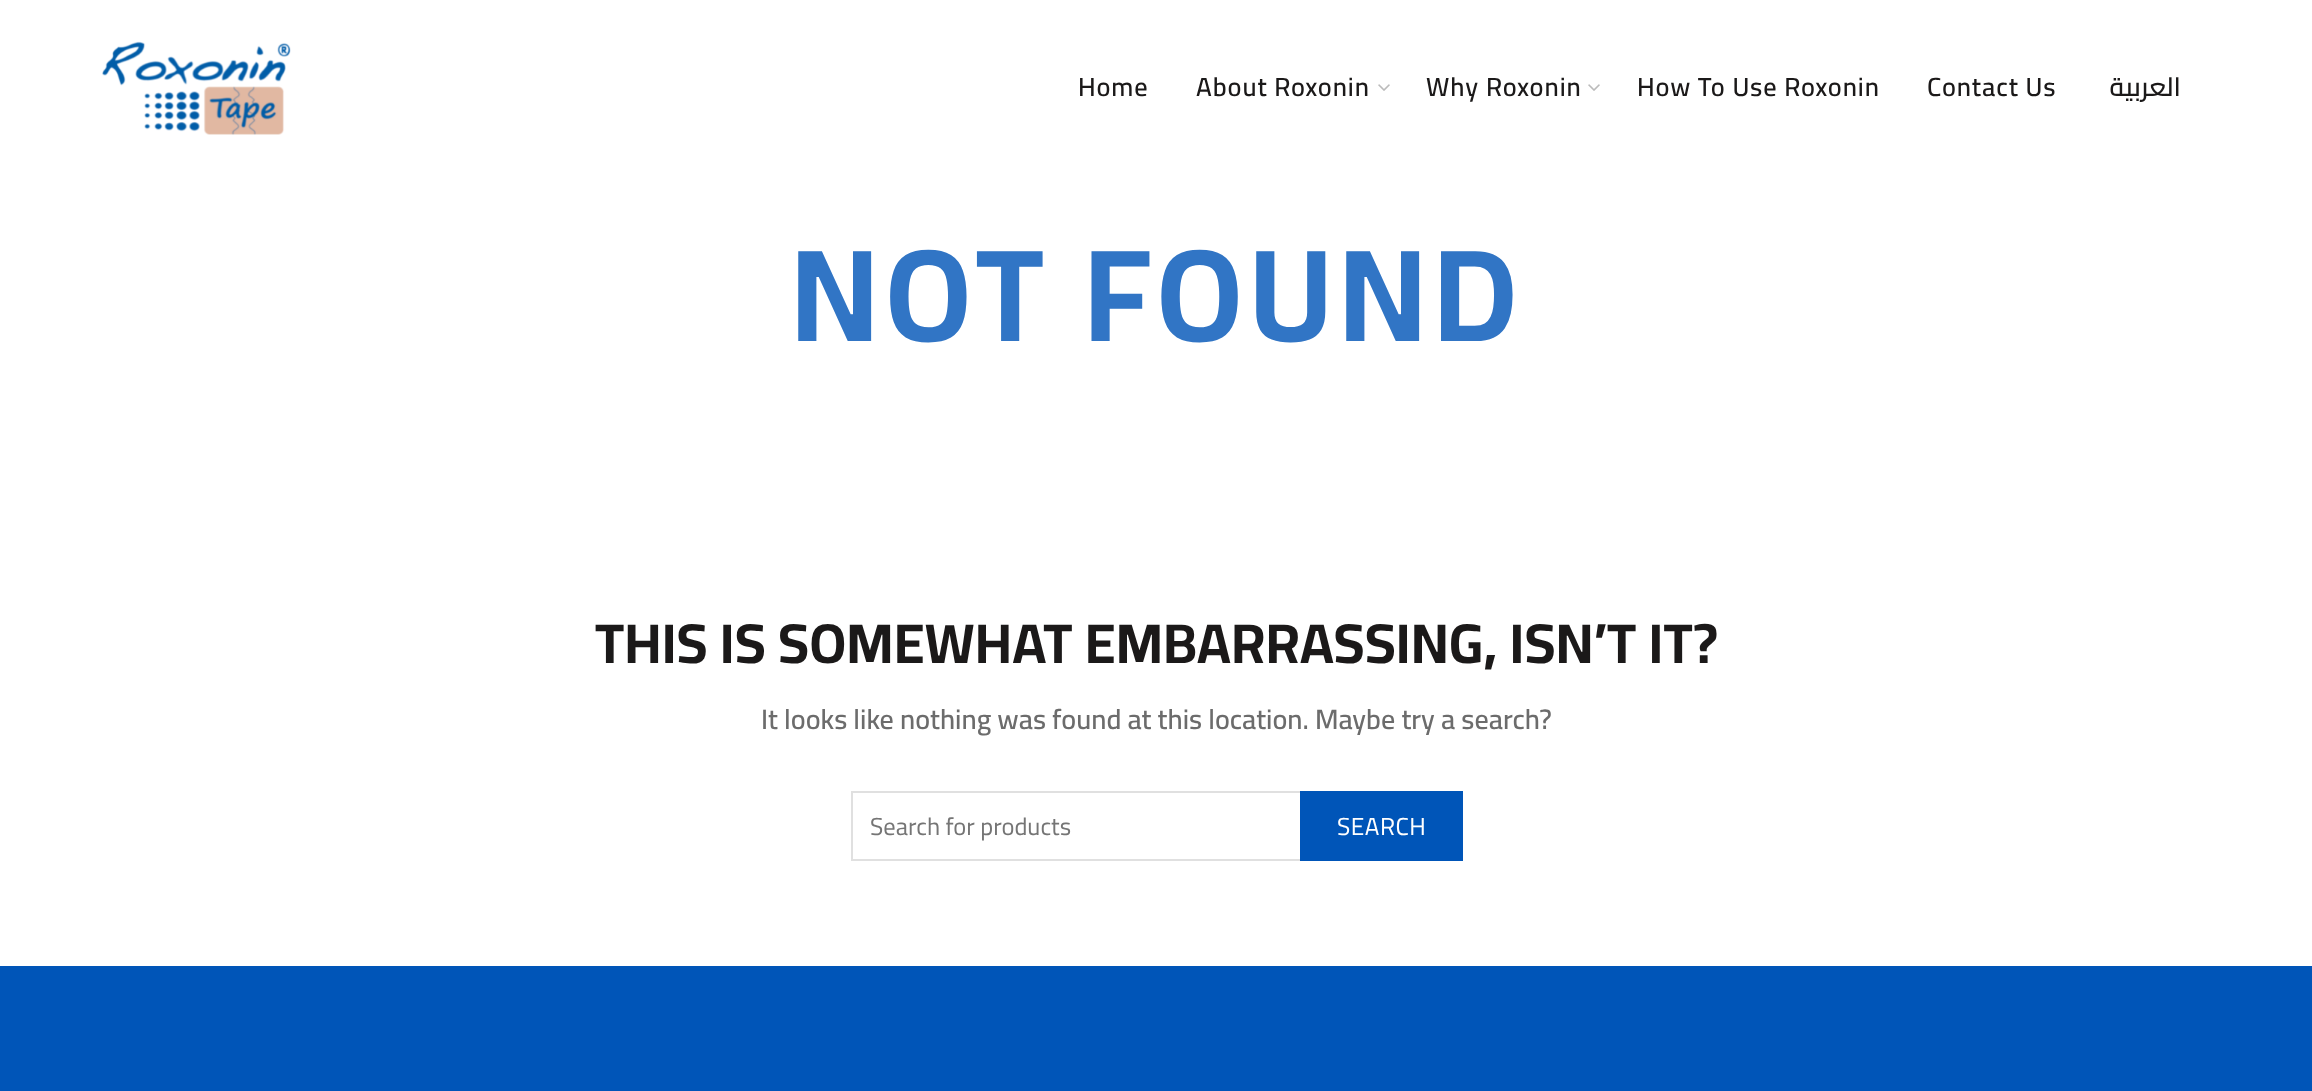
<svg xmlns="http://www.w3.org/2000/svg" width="2312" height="1091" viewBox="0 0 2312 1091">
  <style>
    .t1 { font: 600 26.25px Cairo; letter-spacing: 0.9px; fill: #1b1919; }
    .t2 { font: 600 26.25px Cairo; letter-spacing: 0.9px; direction: rtl; fill: #1b1919; }
    .t3 { font: bold 131.25px Cairo; letter-spacing: 5.25px; fill: #3175c5; }
    .t4 { font: bold 56px Cairo; fill: #1b1919; }
    .t5 { font: 600 28px Cairo; fill: #6c6c6c; }
    .t6 { font: 24.5px Cairo; fill: #757575; }
    .t7 { font: 24.5px Cairo; letter-spacing: 0.5px; fill: #fff; }
  </style>
  <rect width="100%" height="100%" fill="#fff"/>
  <image x="102" y="41" width="189" height="94" href="images/1.png"/>
  <text x="1078" y="96" class="t1">Home</text>
  <text x="1196" y="96" class="t1">About Roxonin</text>
  <image x="1378" y="84" width="12" height="7" href="images/2.png"/>
  <text x="1426" y="96" class="t1">Why</text>
  <text x="1486" y="96" class="t1">Roxonin</text>
  <image x="1588" y="84" width="12" height="7" href="images/2.png"/>
  <text x="1637" y="96" class="t1">How To Use Roxonin</text>
  <text x="1927" y="96" class="t1">Contact Us</text>
  <text x="2181" y="96" class="t2">العربية</text>
  <text x="790" y="341" class="t3">NOT FOUND</text>
  <text x="595" y="663" class="t4">THIS IS SOMEWHAT EMBARRASSING, ISN’T IT?</text>
  <text x="761" y="729" class="t5">It looks like nothing was found at this location. Maybe try a search?</text>
  <rect x="852" y="792" width="610" height="68" fill="none" stroke="#e0e0e0" stroke-width="2"/>
  <text x="870" y="835" class="t6">Search for products</text>
  <rect x="1300" y="791" width="163" height="70" fill="#0055b8"/>
  <text x="1337" y="835" class="t7">SEARCH</text>
  <rect x="0" y="966" width="2312" height="125" fill="#0055b8"/>
</svg>
